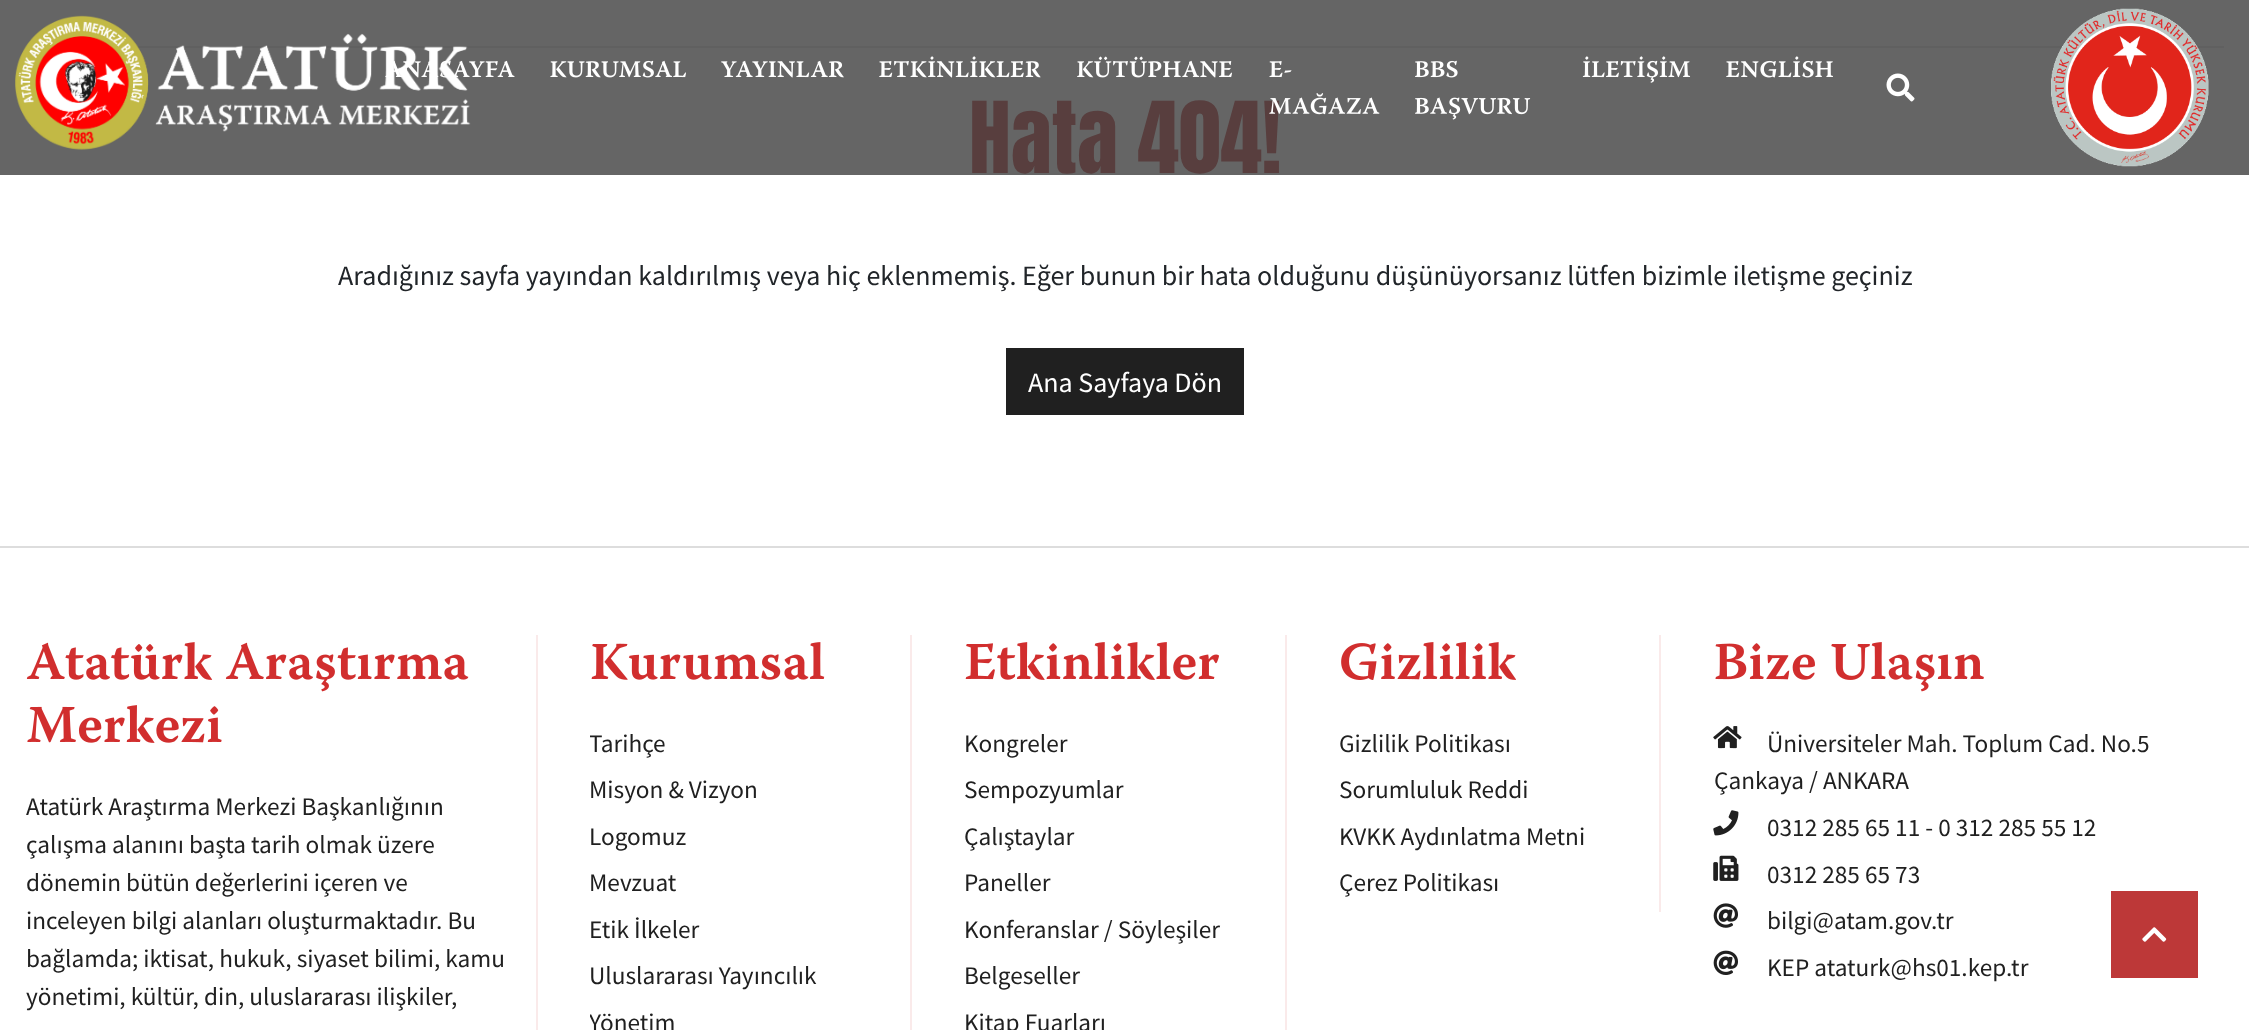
<svg xmlns="http://www.w3.org/2000/svg" width="2249" height="1030" viewBox="0 0 2249 1030">
  <style>
    .t1 { font: 84px Anton; fill: #583e3e; }
    .t2 { font: 28px Source Sans Pro; fill: #212529; }
    .t3 { font: 28px Source Sans Pro; fill: #fff; }
    .t4 { font: 25.25px Source Sans Pro; fill: #202020; }
  </style>
  <defs>
    <clipPath id="clip1"><rect x="590" y="635" width="320" height="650"/></clipPath>
  </defs>
  <rect width="100%" height="100%" fill="#fff"/>
  <rect x="0" y="0" width="2249" height="175" fill="#656565"/>
  <rect x="26" y="46" width="2198" height="2" fill="#606060"/>
  <image x="15" y="15" width="456" height="135" href="images/1.png"/>
  <image x="385" y="60" width="130" height="18" href="images/2.png"/>
  <image x="550" y="60" width="136" height="18" href="images/3.png"/>
  <image x="721" y="60" width="123" height="18" href="images/4.png"/>
  <image x="879" y="56" width="162" height="22" href="images/5.png"/>
  <image x="1077" y="56" width="155" height="22" href="images/6.png"/>
  <image x="1269" y="61" width="23" height="17" href="images/7.png"/>
  <text x="969" y="173" class="t1">Hata 404!</text>
  <image x="1269" y="93" width="111" height="22" href="images/8.png"/>
  <image x="1415" y="60" width="43" height="18" href="images/9.png"/>
  <image x="1415" y="97" width="116" height="23" href="images/10.png"/>
  <image x="1582" y="56" width="109" height="27" href="images/11.png"/>
  <image x="1726" y="56" width="107" height="22" href="images/12.png"/>
  <image x="1886" y="73" width="29" height="29" href="images/13.png"/>
  <image x="2051" y="8" width="158" height="159" href="images/14.png"/>
  <text x="338" y="285" class="t2">Aradığınız sayfa yayından kaldırılmış veya hiç eklenmemiş. Eğer bunun bir hata olduğunu düşünüyorsanız lütfen bizimle iletişme geçiniz</text>
  <rect x="1006" y="348" width="238" height="67" fill="#202020"/>
  <text x="1028" y="392" class="t3">Ana Sayfaya Dön</text>
  <rect x="0" y="546" width="2249" height="2" fill="#ddd"/>
  <rect x="536" y="635" width="2" height="395" fill="#faeaea"/>
  <image x="26" y="642" width="443" height="50" href="images/15.png"/>
  <image x="27" y="705" width="195" height="38" href="images/16.png"/>
  <text x="26" y="815" class="t4">Atatürk Araştırma Merkezi Başkanlığının</text>
  <text x="26" y="853" class="t4">çalışma alanını başta tarih olmak üzere</text>
  <text x="26" y="891" class="t4">dönemin bütün değerlerini içeren ve</text>
  <text x="26" y="929" class="t4">inceleyen bilgi alanları oluşturmaktadır. Bu</text>
  <text x="26" y="967" class="t4">bağlamda; iktisat, hukuk, siyaset bilimi, kamu</text>
  <text x="26" y="1005" class="t4">yönetimi, kültür, din, uluslararası ilişkiler,</text>
  <rect x="910" y="635" width="2" height="395" fill="#faeaea"/>
  <image x="591" y="642" width="234" height="38" href="images/17.png"/>
  <g clip-path="url(#clip1)">
    <text x="589" y="752" class="t4">Tarihçe</text>
  </g>
  <text x="589" y="798" class="t4">Misyon &amp; Vizyon</text>
  <text x="589" y="845" class="t4">Logomuz</text>
  <text x="589" y="891" class="t4">Mevzuat</text>
  <text x="589" y="938" class="t4">Etik İlkeler</text>
  <text x="589" y="984" class="t4">Uluslararası Yayıncılık</text>
  <g clip-path="url(#clip1)">
    <text x="589" y="1031" class="t4">Yönetim</text>
  </g>
  <rect x="1285" y="635" width="2" height="395" fill="#faeaea"/>
  <image x="965" y="642" width="254" height="38" href="images/18.png"/>
  <text x="964" y="752" class="t4">Kongreler</text>
  <text x="964" y="798" class="t4">Sempozyumlar</text>
  <text x="964" y="845" class="t4">Çalıştaylar</text>
  <text x="964" y="891" class="t4">Paneller</text>
  <text x="964" y="938" class="t4">Konferanslar / Söyleşiler</text>
  <text x="964" y="984" class="t4">Belgeseller</text>
  <text x="964" y="1031" class="t4">Kitap Fuarları</text>
  <rect x="1659" y="635" width="2" height="277" fill="#faeaea"/>
  <image x="1341" y="642" width="175" height="38" href="images/19.png"/>
  <text x="1339" y="752" class="t4">Gizlilik Politikası</text>
  <text x="1339" y="798" class="t4">Sorumluluk Reddi</text>
  <text x="1339" y="845" class="t4">KVKK Aydınlatma Metni</text>
  <text x="1339" y="891" class="t4">Çerez Politikası</text>
  <image x="1715" y="642" width="269" height="50" href="images/20.png"/>
  <image x="1713" y="726" width="29" height="23" href="images/21.png"/>
  <text x="1767" y="752" class="t4">Üniversiteler Mah. Toplum Cad. No.5</text>
  <text x="1714" y="789" class="t4">Çankaya / ANKARA</text>
  <image x="1713" y="810" width="26" height="26" href="images/22.png"/>
  <text x="1767" y="836" class="t4">0312 285 65 11 - 0 312 285 55 12</text>
  <image x="1713" y="855" width="26" height="26" href="images/23.png"/>
  <text x="1767" y="883" class="t4">0312 285 65 73</text>
  <image x="1713" y="903" width="25" height="25" href="images/24.png"/>
  <text x="1767" y="929" class="t4">bilgi@atam.gov.tr</text>
  <image x="1713" y="950" width="25" height="25" href="images/25.png"/>
  <text x="1767" y="976" class="t4">KEP ataturk@hs01.kep.tr</text>
  <rect x="2111" y="891" width="87" height="87" fill="#bd3838"/>
  <image x="2142" y="927" width="25" height="15" href="images/26.png"/>
</svg>
